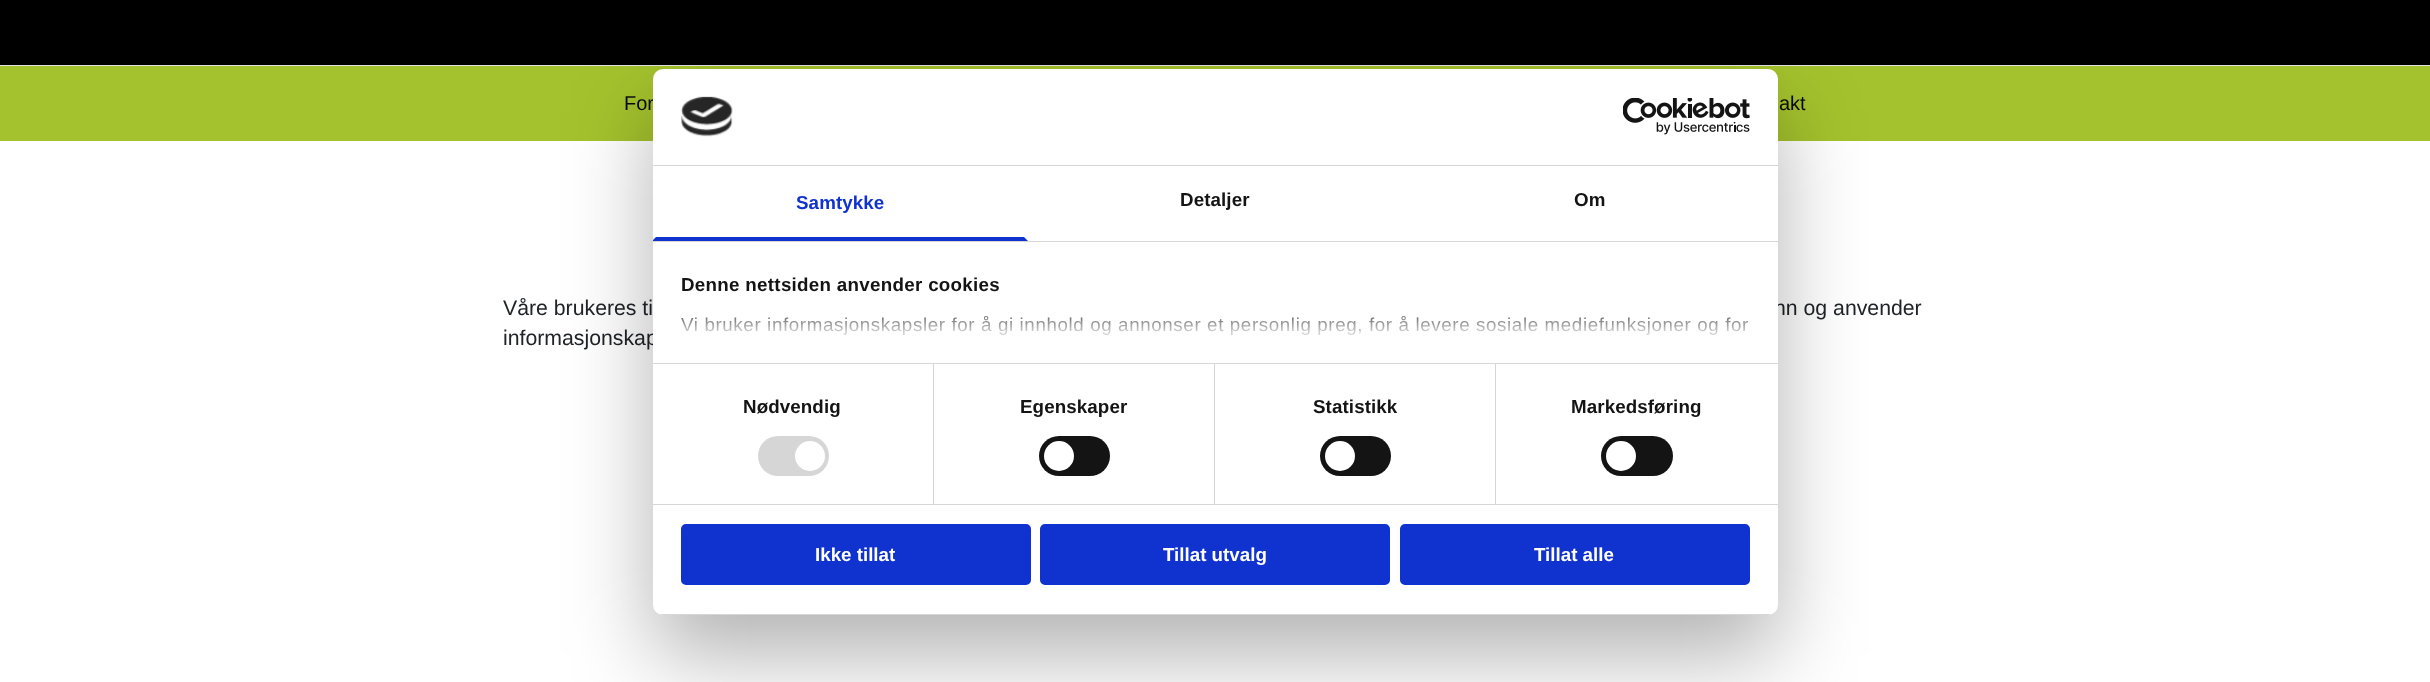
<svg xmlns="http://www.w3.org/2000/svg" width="2430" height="682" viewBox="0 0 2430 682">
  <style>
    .t1 { font: 20px Liberation Sans; fill: #0a0a0a; }
    .t2 { font: 21.25px Liberation Sans; fill: #202429; }
    .t3 { font: bold 18.75px Liberation Sans; letter-spacing: 0.1px; fill: #1032cf; }
    .t4 { font: bold 18.75px Liberation Sans; letter-spacing: 0.1px; fill: #141414; }
    .t5 { font: bold 18.75px Liberation Sans; letter-spacing: 0.3px; fill: #141414; }
    .t6 { font: 18.75px Liberation Sans; letter-spacing: 0.62px; fill: #141414; }
    .t7 { font: bold 18.75px Liberation Sans; fill: #fff; }
  </style>
  <defs>
    <linearGradient id="g1" gradientUnits="userSpaceOnUse" x1="1203" y1="362" x2="1203" y2="302"><stop offset="0" stop-color="#fff"/><stop offset="0.5" stop-color="#fff" stop-opacity="0.8"/><stop offset="1" stop-color="#fff" stop-opacity="0"/></linearGradient>
    <clipPath id="clip1"><rect x="653" y="69" width="1125" height="546" rx="10"/></clipPath>
  </defs>
  <rect width="100%" height="100%" fill="#fff"/>
  <rect x="0" y="0" width="2430" height="65" fill="#000"/>
  <rect x="0" y="65" width="2430" height="1" fill="#e3e3e3"/>
  <rect x="0" y="66" width="2430" height="75" fill="#a4c22d"/>
  <text x="624" y="110" class="t1">For</text>
  <text x="1779" y="110" class="t1">akt</text>
  <text x="503" y="315" class="t2">Våre brukeres ti</text>
  <text x="1774" y="315" class="t2">nn og anvender</text>
  <text x="503" y="345" class="t2">informasjonskap</text>
  <rect x="653" y="109" width="1125" height="546" rx="10" fill="#0000004d" filter="blur(42.5px)"/>
  <rect x="653" y="69" width="1125" height="546" rx="10" fill="#fff"/>
  <rect x="653" y="165" width="1125" height="1" fill="#d6d6d6"/>
  <image x="681" y="96" width="52" height="41" href="images/1.png"/>
  <image x="1623" y="98" width="127" height="37" href="images/2.png"/>
  <rect x="653" y="241" width="1125" height="1" fill="#d6d6d6"/>
  <path d="M1028 241H653V240L656 237H1024Z" fill="#1032cf"/>
  <text x="796" y="209" class="t3">Samtykke</text>
  <text x="1180" y="206" class="t4">Detaljer</text>
  <text x="1574" y="206" class="t4">Om</text>
  <rect x="653" y="363" width="1125" height="1" fill="#d6d6d6"/>
  <text x="681" y="291" class="t5">Denne nettsiden anvender cookies</text>
  <text x="681" y="331" class="t6">Vi bruker informasjonskapsler for å gi innhold og annonser et personlig preg, for å levere sosiale mediefunksjoner og for</text>
  <rect x="680" y="315" width="1069" height="20" fill="url(#g1)"/>
  <rect x="653" y="504" width="1125" height="1" fill="#d6d6d6"/>
  <rect x="933" y="364" width="1" height="140" fill="#d6d6d6"/>
  <text x="743" y="413" class="t4">Nødvendig</text>
  <rect x="758" y="436" width="71" height="40" rx="20" fill="#d6d6d6"/>
  <circle cx="810" cy="456" r="15" fill="#fff"/>
  <rect x="1214" y="364" width="1" height="140" fill="#d6d6d6"/>
  <text x="1020" y="413" class="t4">Egenskaper</text>
  <rect x="1039" y="436" width="71" height="40" rx="20" fill="#141414"/>
  <circle cx="1059" cy="456" r="15" fill="#fff"/>
  <rect x="1495" y="364" width="1" height="140" fill="#d6d6d6"/>
  <text x="1313" y="413" class="t4">Statistikk</text>
  <rect x="1320" y="436" width="71" height="40" rx="20" fill="#141414"/>
  <circle cx="1340" cy="456" r="15" fill="#fff"/>
  <text x="1571" y="413" class="t4">Markedsføring</text>
  <rect x="1601" y="436" width="72" height="40" rx="20" fill="#141414"/>
  <circle cx="1621" cy="456" r="15" fill="#fff"/>
  <g clip-path="url(#clip1)">
    <rect x="653" y="614" width="1125" height="1" fill="#d6d6d6"/>
  </g>
  <rect x="682.5" y="525.5" width="347" height="58" rx="3.5" fill="#1032cf" stroke="#1032cf" stroke-width="3"/>
  <text x="815" y="561" class="t7">Ikke tillat</text>
  <rect x="1041.5" y="525.5" width="347" height="58" rx="3.5" fill="#1032cf" stroke="#1032cf" stroke-width="3"/>
  <text x="1163" y="561" class="t7">Tillat utvalg</text>
  <rect x="1401.5" y="525.5" width="347" height="58" rx="3.5" fill="#1032cf" stroke="#1032cf" stroke-width="3"/>
  <text x="1534" y="561" class="t7">Tillat alle</text>
</svg>
